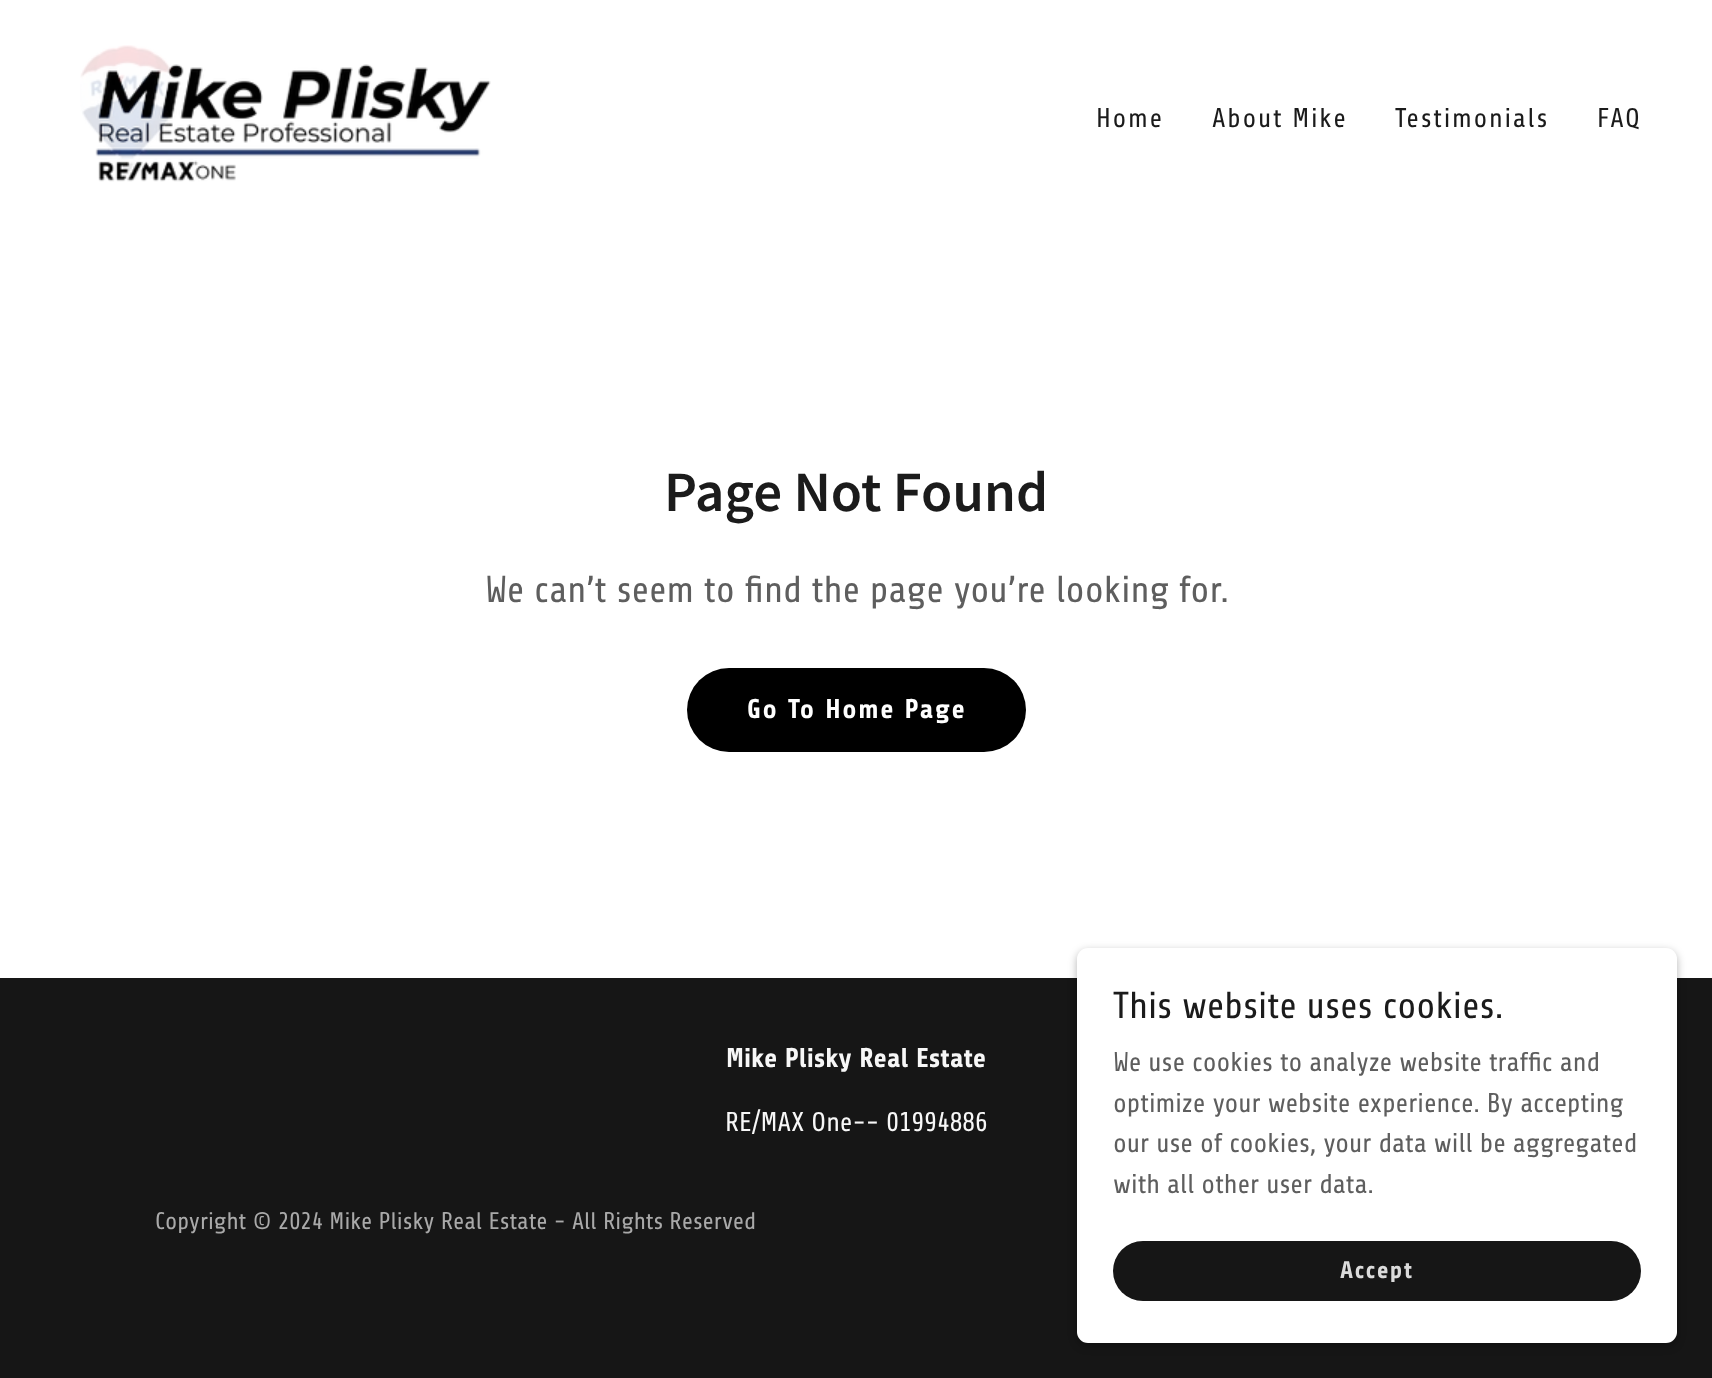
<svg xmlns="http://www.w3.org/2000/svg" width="1712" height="1378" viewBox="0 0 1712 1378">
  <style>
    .t1 { font: 27px Share; letter-spacing: 1.75px; fill: #1b1b1b; }
    .t2 { font: 600 57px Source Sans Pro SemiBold; fill: #1b1b1b; }
    .t3 { font: 37.5px Share; fill: #5e5e5e; }
    .t4 { font: bold 27px Share; letter-spacing: 1.75px; fill: #fff; }
    .t5 { font: bold 27px Share; fill: #f7f7f7; }
    .t6 { font: 27px Share; fill: #f7f7f7; }
    .t7 { font: 24px Share; fill: #a9a9a9; }
    .t8 { font: 37.5px Share; fill: #1b1b1b; }
    .t9 { font: 27px Share; fill: #5e5e5e; }
    .t10 { font: bold 24px Share; letter-spacing: 1.5px; fill: #dbdbdb; }
  </style>
  <rect width="100%" height="100%" fill="#161616"/>
  <rect x="0" y="0" width="1712" height="978" fill="#fff"/>
  <image x="80" y="45" width="411" height="137" href="images/1.png"/>
  <text x="1096" y="127" class="t1">Home</text>
  <text x="1212" y="127" class="t1">About Mike</text>
  <text x="1395" y="127" class="t1">Testimonials</text>
  <text x="1597" y="127" class="t1">FAQ</text>
  <text x="664" y="511" class="t2">Page Not Found</text>
  <text x="485" y="602" class="t3">We can’t seem to find the page you’re looking for.</text>
  <rect x="687" y="668" width="339" height="84" rx="42" fill="#000"/>
  <text x="747" y="718" class="t4">Go To Home Page</text>
  <text x="726" y="1067" class="t5">Mike Plisky Real Estate</text>
  <text x="725" y="1131" class="t6">RE/MAX One-- 01994886</text>
  <text x="155" y="1229" class="t7">Copyright © 2024 Mike Plisky Real Estate - All Rights Reserved</text>
  <rect x="1077" y="951" width="600" height="395" rx="11" fill="#0000004d" filter="blur(4.5px)"/>
  <rect x="1077" y="948" width="600" height="395" rx="11" fill="#fff"/>
  <text x="1113" y="1018" class="t8">This website uses cookies.</text>
  <text x="1113" y="1071" class="t9">We use cookies to analyze website traffic and</text>
  <text x="1113" y="1112" class="t9">optimize your website experience. By accepting</text>
  <text x="1113" y="1152" class="t9">our use of cookies, your data will be aggregated</text>
  <text x="1113" y="1193" class="t9">with all other user data.</text>
  <rect x="1113" y="1241" width="528" height="60" rx="30" fill="#161616"/>
  <text x="1340" y="1278" class="t10">Accept</text>
</svg>
